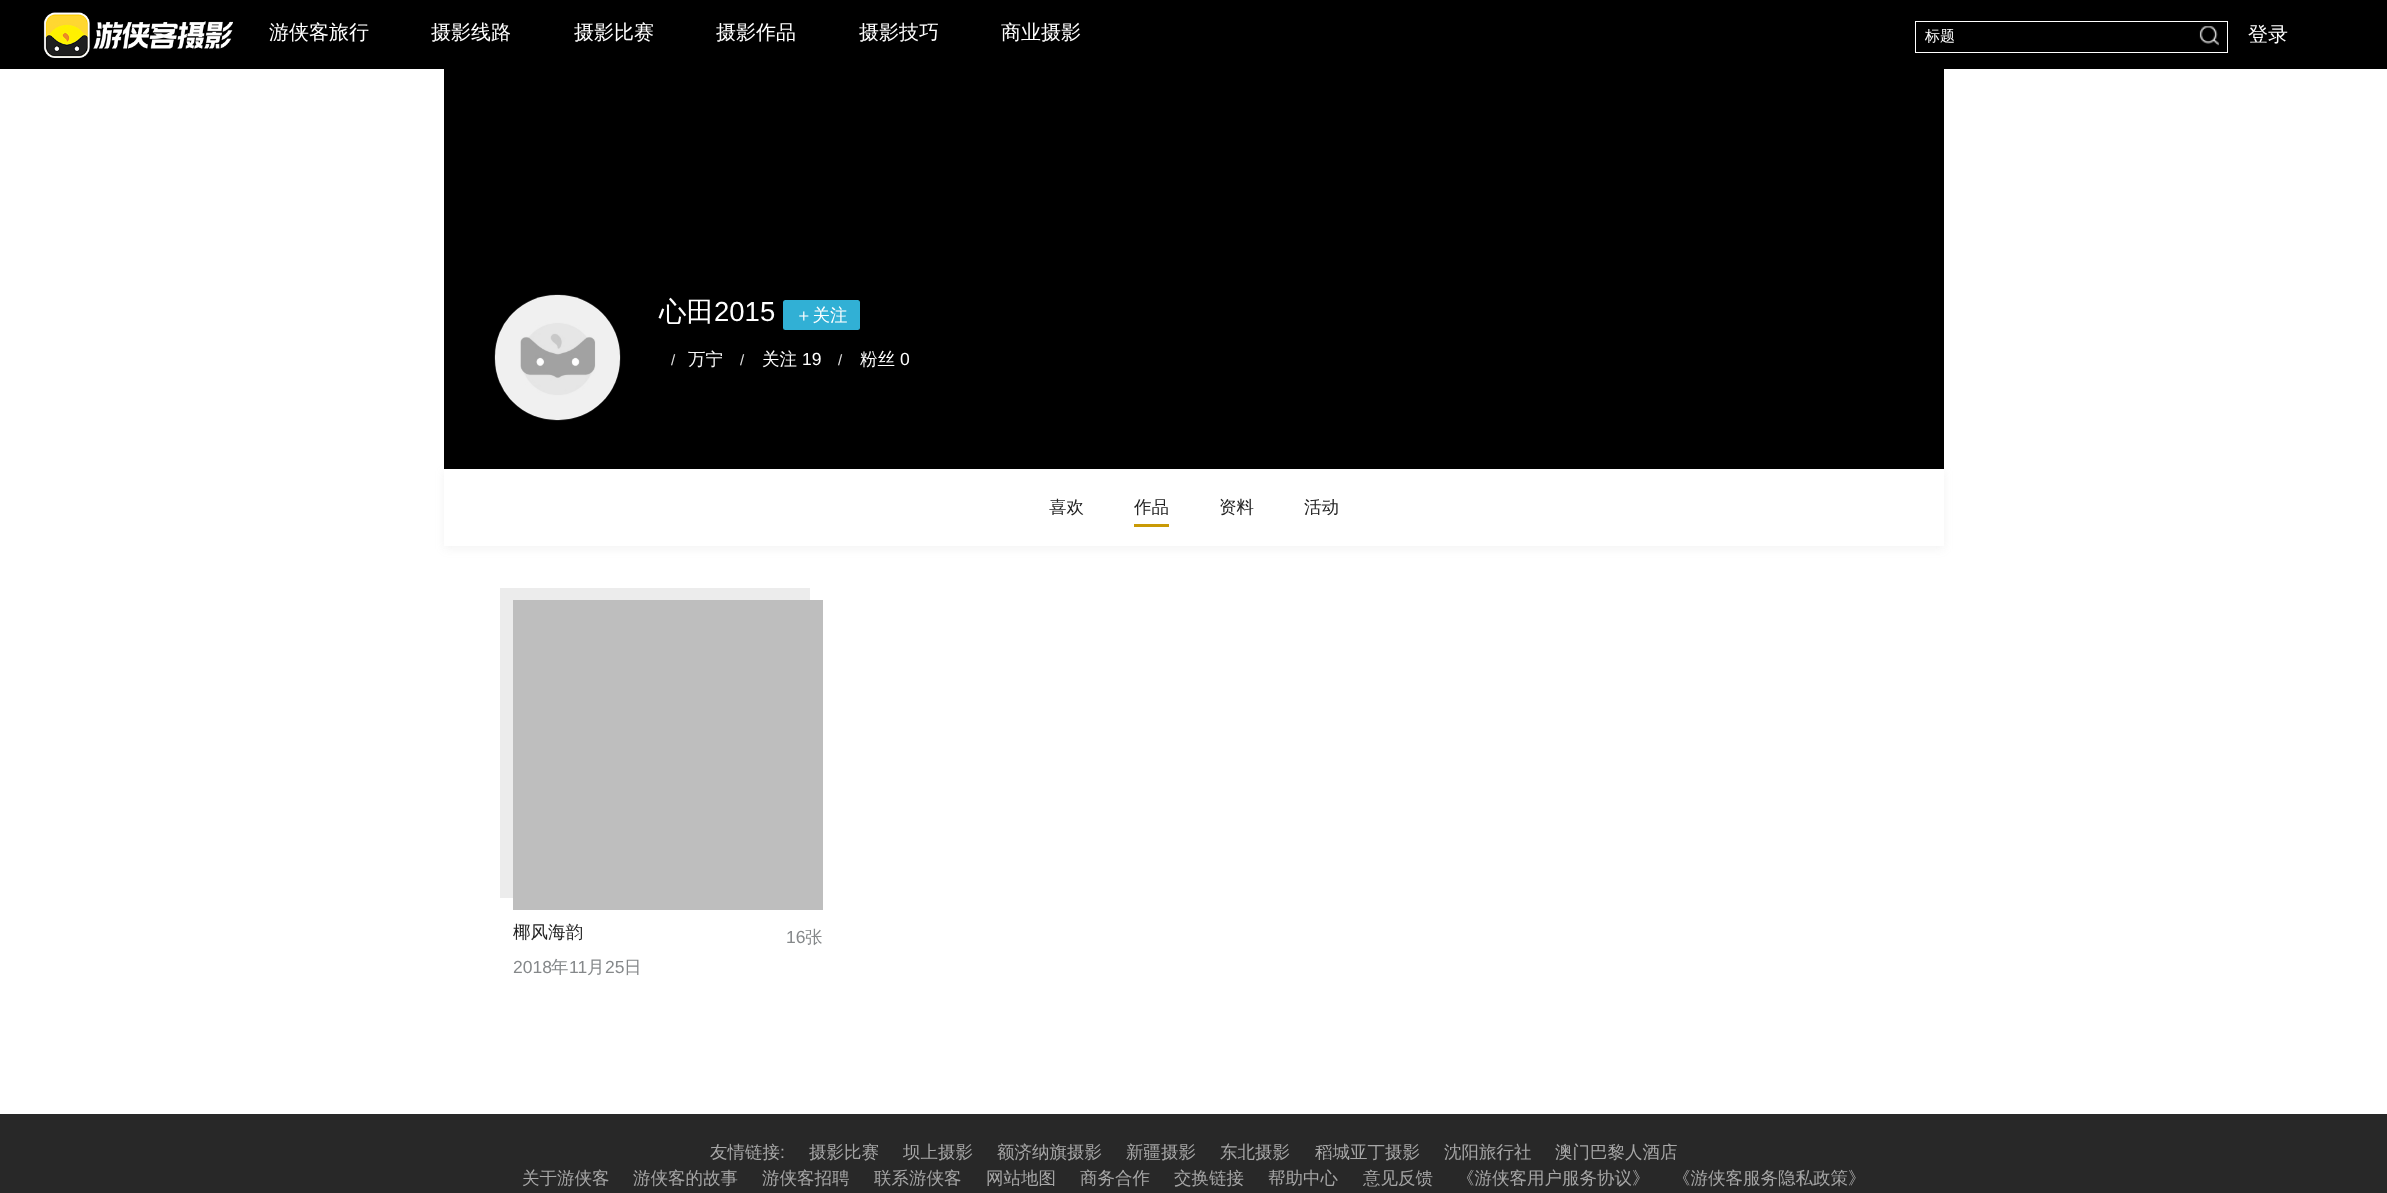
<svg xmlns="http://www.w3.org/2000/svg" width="2387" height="1193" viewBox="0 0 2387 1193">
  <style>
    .t1 { font: 500 20px WenQuanYi Zen Hei; fill: #fff; }
    .t2 { font: 500 15px WenQuanYi Zen Hei; fill: #fff; }
    .t3 { font: 500 27.5px WenQuanYi Zen Hei; fill: #fff; }
    .t4 { font: 27.5px Liberation Sans; fill: #fff; }
    .t5 { font: 500 17.5px WenQuanYi Zen Hei; fill: #fff; }
    .t6 { font: 15px Liberation Sans; fill: #e0e0e0; }
    .t7 { font: 500 17.5px WenQuanYi Zen Hei; fill: #f9f9f9; }
    .t8 { font: 17.5px Liberation Sans; fill: #fff; }
    .t9 { font: 500 17.5px WenQuanYi Zen Hei; fill: #222; }
    .t10 { font: 17.5px Liberation Sans; fill: #85888a; }
    .t11 { font: 500 17.5px WenQuanYi Zen Hei; fill: #85888a; }
    .t12 { font: 500 17.5px WenQuanYi Zen Hei; fill: #a6a6a6; }
    .t13 { font: 17.5px Liberation Sans; fill: #a6a6a6; }
  </style>
  <rect width="100%" height="100%" fill="#fff"/>
  <rect x="0" y="0" width="2387" height="69" fill="#000"/>
  <image x="43" y="12" width="190" height="46" href="images/1.png"/>
  <text x="269" y="39" class="t1">游侠客旅行</text>
  <text x="431" y="39" class="t1">摄影线路</text>
  <text x="574" y="39" class="t1">摄影比赛</text>
  <text x="716" y="39" class="t1">摄影作品</text>
  <text x="859" y="39" class="t1">摄影技巧</text>
  <text x="1001" y="39" class="t1">商业摄影</text>
  <rect x="1915.5" y="21.5" width="312" height="31" fill="none" stroke="#fff"/>
  <text x="1925" y="41" class="t2">标题</text>
  <image x="2199" y="26" width="20" height="20" href="images/2.png"/>
  <text x="2248" y="41" class="t1">登录</text>
  <rect x="444" y="471" width="1500" height="78" fill="#85888a1a" filter="blur(5px)"/>
  <rect x="444" y="69" width="1500" height="400" fill="#000"/>
  <rect x="494.5" y="294.5" width="126" height="126" rx="62.5" fill="none" stroke="#1a1a1a"/>
  <image x="495" y="295" width="125" height="125" href="images/3.png"/>
  <text x="659" y="321" class="t3">心田</text>
  <text x="714" y="321" class="t4">2015</text>
  <rect x="783" y="300" width="77" height="30" rx="2.5" fill="#31b0d5"/>
  <text x="795" y="321" class="t5">＋关注</text>
  <text x="671" y="365" class="t6">/</text>
  <text x="688" y="365" class="t7">万宁</text>
  <text x="740" y="365" class="t6">/</text>
  <text x="762" y="365" class="t5">关注</text>
  <text x="802" y="365" class="t8">19</text>
  <text x="838" y="365" class="t6">/</text>
  <text x="860" y="365" class="t5">粉丝</text>
  <text x="900" y="365" class="t8">0</text>
  <rect x="444" y="469" width="1500" height="77" fill="#fff"/>
  <text x="1049" y="513" class="t9">喜欢</text>
  <rect x="1134" y="524" width="35" height="3" fill="#c99a05"/>
  <text x="1134" y="513" class="t9">作品</text>
  <text x="1219" y="513" class="t9">资料</text>
  <text x="1304" y="513" class="t9">活动</text>
  <rect x="500" y="588" width="310" height="310" fill="#ececec"/>
  <rect x="513" y="600" width="310" height="310" fill="#bebebe"/>
  <text x="513" y="938" class="t9">椰风海韵</text>
  <text x="786" y="943" class="t10">16</text>
  <text x="805" y="943" class="t11">张</text>
  <text x="513" y="973" class="t10">2018</text>
  <text x="551" y="973" class="t11">年</text>
  <text x="569" y="973" class="t10">11</text>
  <text x="587" y="973" class="t11">月</text>
  <text x="605" y="973" class="t10">25</text>
  <text x="624" y="973" class="t11">日</text>
  <rect x="0" y="1114" width="2387" height="79" fill="#282828"/>
  <text x="710" y="1158" class="t12">友情链接</text>
  <text x="780" y="1158" class="t13">:</text>
  <text x="809" y="1158" class="t12">摄影比赛</text>
  <text x="903" y="1158" class="t12">坝上摄影</text>
  <text x="997" y="1158" class="t12">额济纳旗摄影</text>
  <text x="1126" y="1158" class="t12">新疆摄影</text>
  <text x="1220" y="1158" class="t12">东北摄影</text>
  <text x="1315" y="1158" class="t12">稻城亚丁摄影</text>
  <text x="1444" y="1158" class="t12">沈阳旅行社</text>
  <text x="1555" y="1158" class="t12">澳门巴黎人酒店</text>
  <text x="522" y="1184" class="t12">关于游侠客</text>
  <text x="633" y="1184" class="t12">游侠客的故事</text>
  <text x="762" y="1184" class="t12">游侠客招聘</text>
  <text x="874" y="1184" class="t12">联系游侠客</text>
  <text x="986" y="1184" class="t12">网站地图</text>
  <text x="1080" y="1184" class="t12">商务合作</text>
  <text x="1174" y="1184" class="t12">交换链接</text>
  <text x="1268" y="1184" class="t12">帮助中心</text>
  <text x="1363" y="1184" class="t12">意见反馈</text>
  <text x="1457" y="1184" class="t12">《游侠客用户服务协议》</text>
  <text x="1673" y="1184" class="t12">《游侠客服务隐私政策》</text>
</svg>
